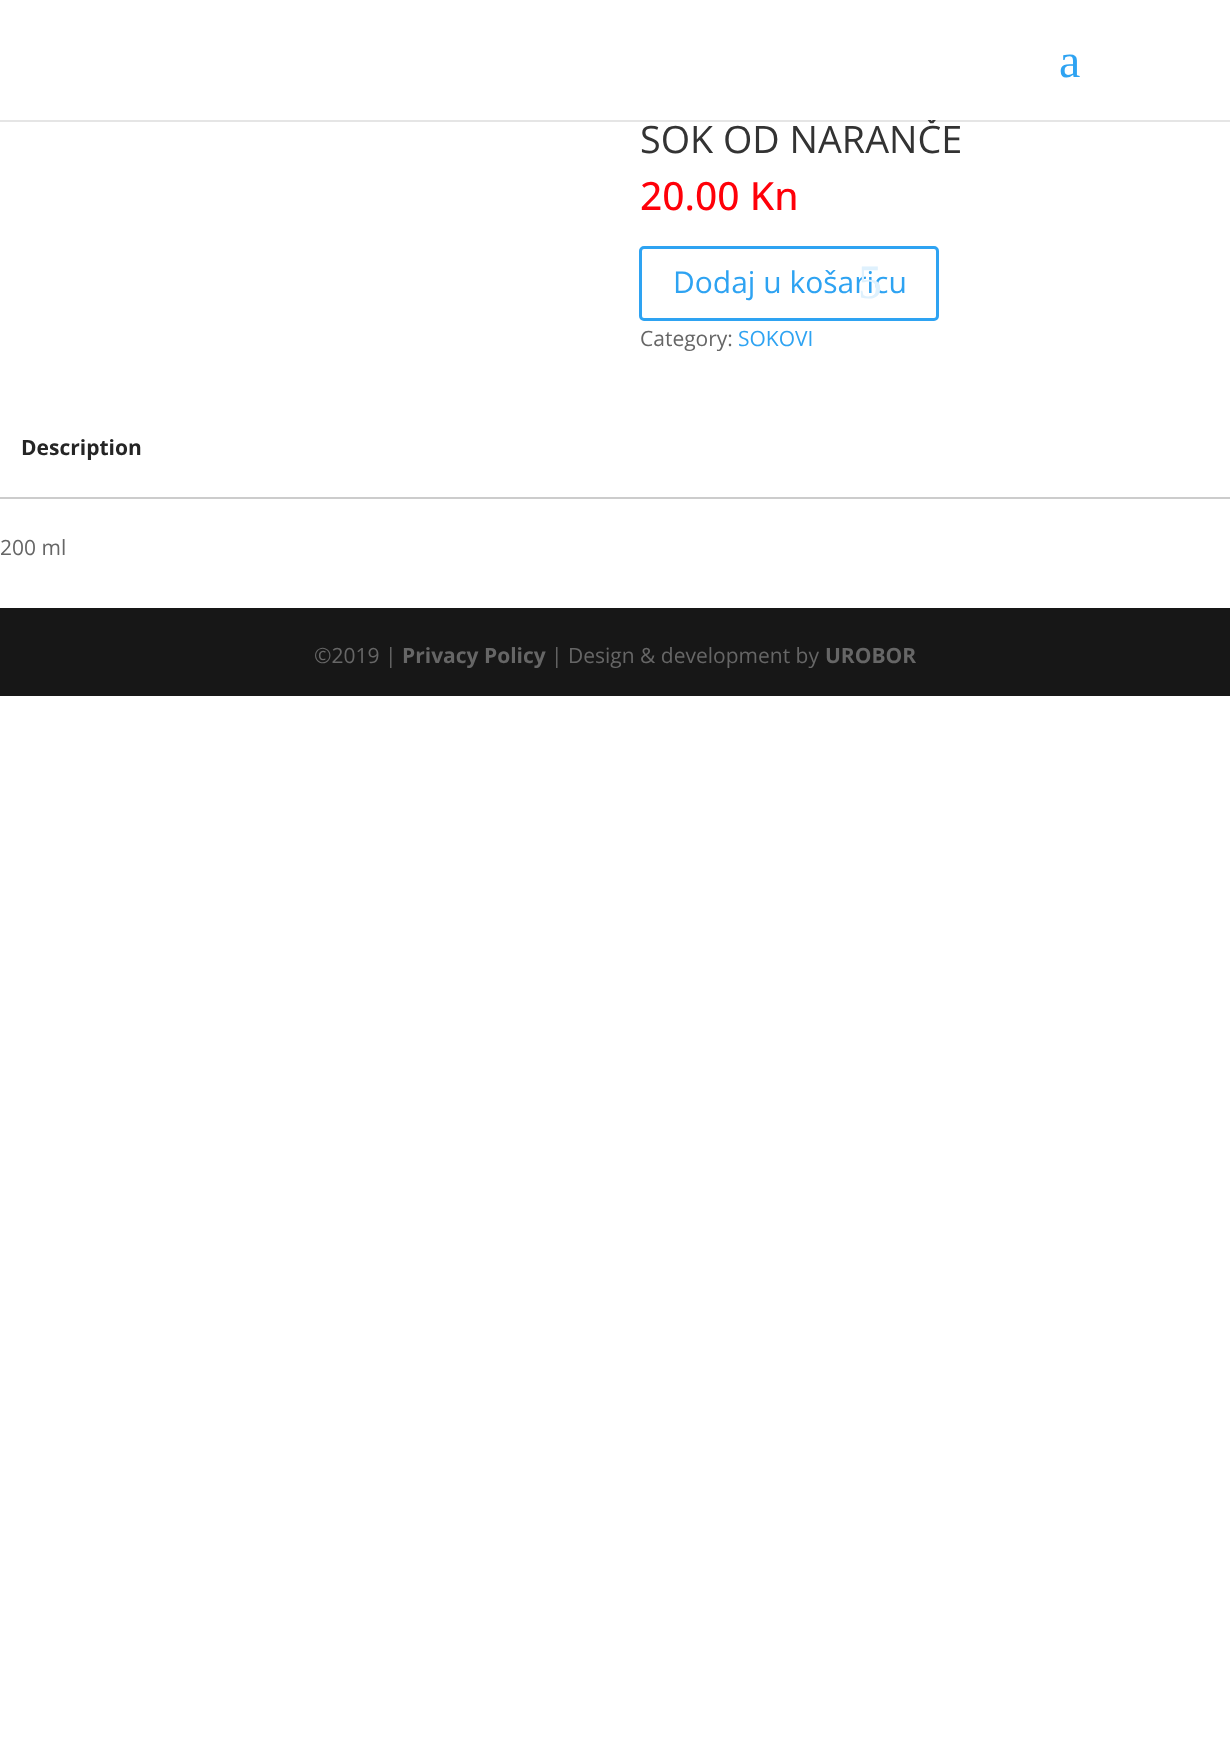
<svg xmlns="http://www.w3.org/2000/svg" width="1230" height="1763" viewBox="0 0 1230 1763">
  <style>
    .t1 { font: 37.75px Open Sans; fill: #333; }
    .t2 { font: 48px Liberation Serif; fill: #2ea3f2; }
    .t3 { font: 500 39px Open Sans; fill: #ff0009; }
    .t4 { font: 30px Open Sans; fill: #2ea3f2; }
    .t5 { font: 48px Liberation Serif; fill: #dff1fd; }
    .t6 { font: 21px Open Sans; fill: #666; }
    .t7 { font: 21px Open Sans; fill: #2ea3f2; }
    .t8 { font: bold 21px Open Sans; fill: #252525; }
    .t9 { font: bold 21px Open Sans; fill: #666; }
  </style>
  <rect width="100%" height="100%" fill="#fff"/>
  <rect x="0" y="120" width="1230" height="2" fill="#0000001a"/>
  <text x="640" y="153" class="t1">SOK OD NARANČE</text>
  <rect x="925" y="117" width="13" height="3" fill="#fff"/>
  <text x="1059" y="77" class="t2">a</text>
  <text x="640" y="210" class="t3">20.00 Kn</text>
  <rect x="640.5" y="247.5" width="297" height="72" rx="3.5" fill="none" stroke="#2ea3f2" stroke-width="3"/>
  <text x="673" y="293" class="t4">Dodaj u košaricu</text>
  <text x="858" y="298" class="t5">5</text>
  <text x="640" y="346" class="t6">Category:</text>
  <text x="738" y="346" class="t7">SOKOVI</text>
  <rect x="0" y="497" width="1230" height="2" fill="#ccc"/>
  <text x="21" y="455" class="t8">Description</text>
  <text x="0" y="555" class="t6">200 ml</text>
  <rect x="0" y="608" width="1230" height="88" fill="#171717"/>
  <text x="314" y="663" class="t6">©2019 |</text>
  <text x="402" y="663" class="t9">Privacy Policy</text>
  <text x="551" y="663" class="t6">| Design &amp; development by</text>
  <text x="825" y="663" class="t9">UROBOR</text>
</svg>
